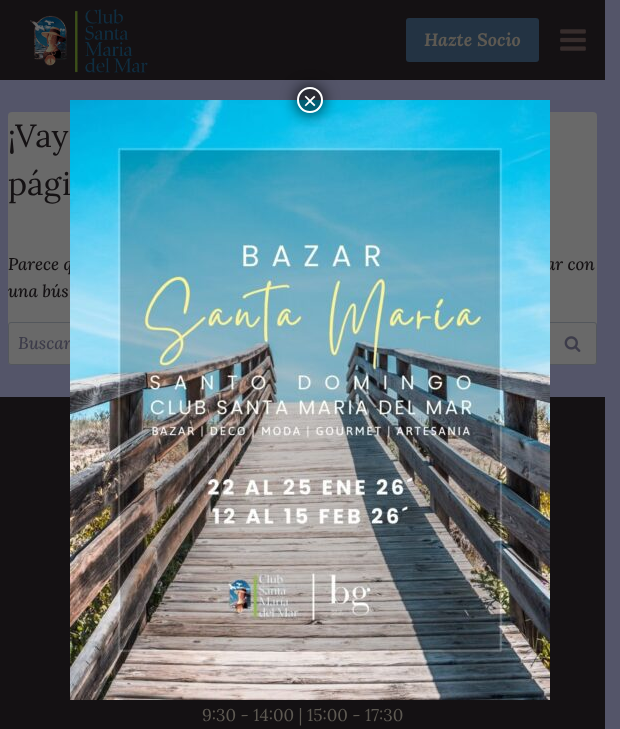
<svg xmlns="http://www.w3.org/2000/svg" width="620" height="729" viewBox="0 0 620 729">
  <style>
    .t1 { font: italic bold 18px Lora; fill: #5d5952; }
    .t2 { font: 32px Lora; fill: #141113; }
    .t3 { font: italic 500 17px Lora; fill: #141113; }
    .t4 { font: italic 500 17px Lora; fill: #3d3c4a; }
    .t5 { font: 17px Lora; fill: #5d5952; }
    .t6 { font: 24px Liberation Sans; fill: #fff; }
  </style>
  <defs>
    <clipPath id="clip1"><path d="M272 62H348V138H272ZM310 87C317 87 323 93 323 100C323 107 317 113 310 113C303 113 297 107 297 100C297 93 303 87 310 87Z" clip-rule="evenodd"/></clipPath>
  </defs>
  <rect width="100%" height="100%" fill="#545569"/>
  <rect x="0" y="0" width="605" height="80" fill="#141113"/>
  <image x="30" y="9" width="118" height="64" href="images/1.png"/>
  <rect x="406" y="18" width="133" height="44" rx="3" fill="#233343"/>
  <text x="424" y="46" class="t1">Hazte Socio</text>
  <image x="560" y="29" width="26" height="22" href="images/2.png"/>
  <rect x="8" y="112" width="589" height="253" rx="4" fill="#696969"/>
  <text x="8" y="147" class="t2">¡Vay</text>
  <text x="8" y="195" class="t2">pági</text>
  <text x="8" y="270" class="t3">Parece q</text>
  <text x="546" y="270" class="t3">ar con</text>
  <text x="8" y="297" class="t3">una bús</text>
  <rect x="8.5" y="322.5" width="588" height="42" rx="2.5" fill="#696969" stroke="#53575c"/>
  <text x="18" y="349" class="t4">Buscar</text>
  <image x="564" y="336" width="17" height="16" href="images/3.png"/>
  <rect x="0" y="397" width="605" height="332" fill="#141113"/>
  <text x="202" y="721" class="t5">9:30 - 14:00 | 15:00 - 17:30</text>
  <image x="70" y="100" width="480" height="600" href="images/4.png"/>
  <g clip-path="url(#clip1)">
    <rect x="296" y="86" width="28" height="28" rx="14" fill="#020202bf" filter="blur(7.5px)"/>
  </g>
  <circle cx="310" cy="100" r="12" fill="#00000080" stroke="#fff" stroke-width="2"/>
  <text x="303" y="109" class="t6">×</text>
</svg>
